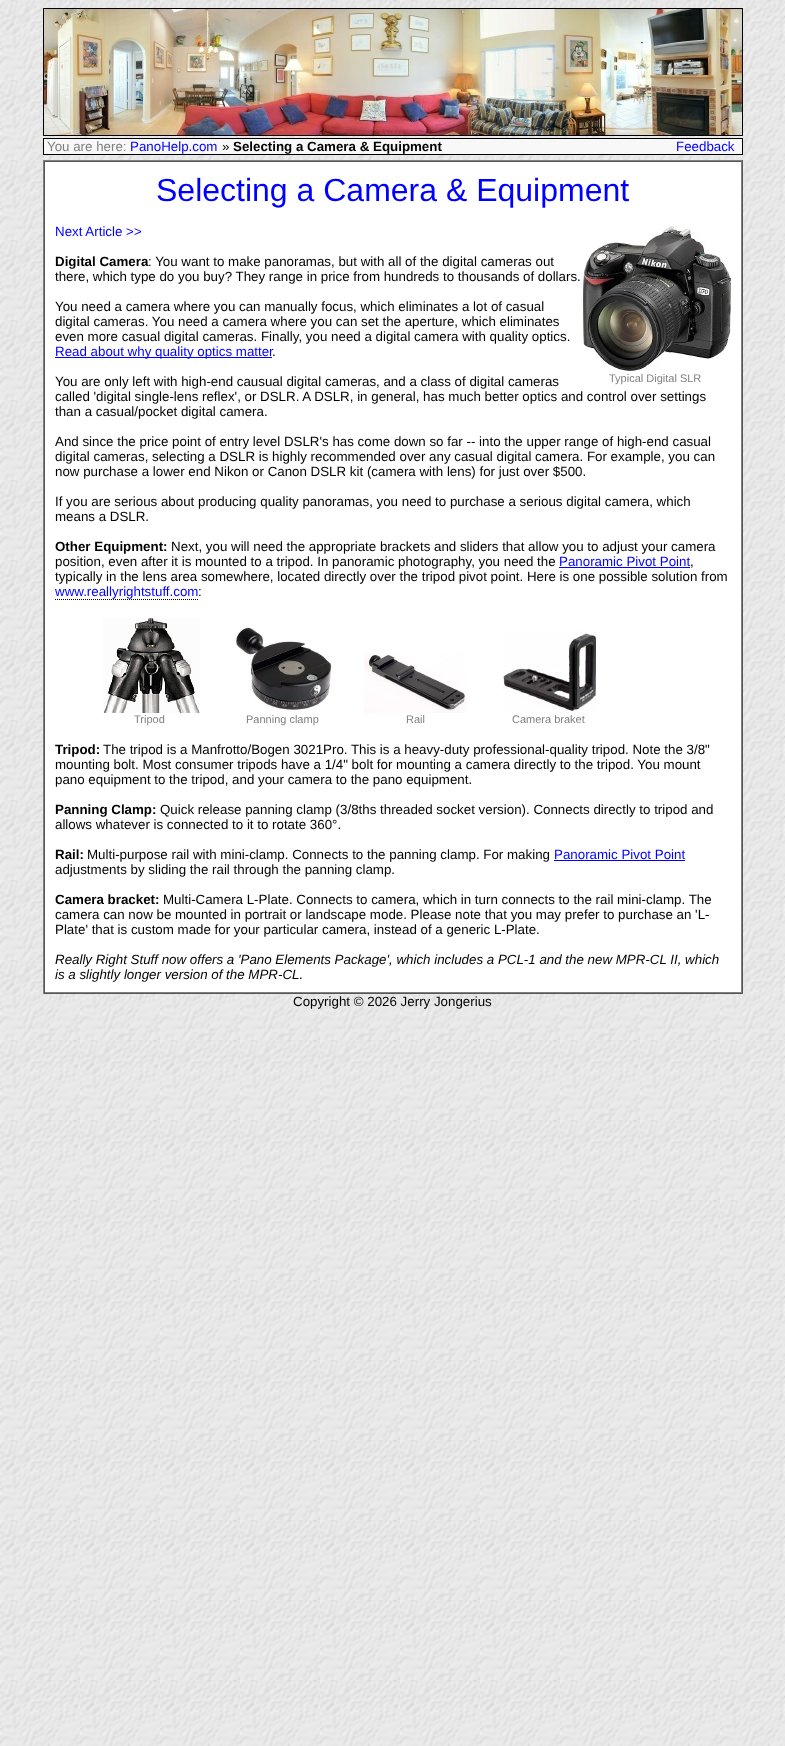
<svg xmlns="http://www.w3.org/2000/svg" width="785" height="1746" viewBox="0 0 785 1746">
  <style>
    .t1 { font: 13.33px Liberation Sans; fill: #808080; }
    .t2 { font: 13.33px Liberation Sans; fill: #00f; }
    .t3 { font: 13.33px Liberation Sans; fill: #000; }
    .t4 { font: bold 13.33px Liberation Sans; fill: #000; }
    .t5 { font: 32px Liberation Sans; fill: #00f; }
    .t6 { font: 11px Liberation Sans; fill: #808080; }
    .t7 { font: italic 13.33px Liberation Sans; fill: #000; }
  </style>
  <rect width="100%" height="100%" fill="#fff"/>
  <image x="0" y="0" width="785" height="1746" href="images/1.png"/>
  <image x="43" y="8" width="700" height="128" href="images/2.png"/>
  <rect x="43" y="138" width="700" height="17" fill="#000"/>
  <rect x="44" y="139" width="698" height="15" fill="#f8f8f8"/>
  <text x="47" y="151" class="t1">You are here:</text>
  <text x="130" y="151" class="t2">PanoHelp.com</text>
  <text x="222" y="151" class="t3">»</text>
  <text x="233" y="151" class="t4">Selecting a Camera &amp; Equipment</text>
  <text x="676" y="151" class="t2">Feedback</text>
  <rect x="45" y="162" width="696" height="830" fill="#fff"/>
  <rect x="43" y="160" width="700" height="1" fill="#808080"/>
  <rect x="742" y="160" width="1" height="834" fill="#555"/>
  <rect x="43" y="993" width="700" height="1" fill="#555"/>
  <rect x="43" y="160" width="1" height="834" fill="#808080"/>
  <rect x="44" y="161" width="698" height="1" fill="#555"/>
  <rect x="741" y="161" width="1" height="832" fill="#808080"/>
  <rect x="44" y="992" width="698" height="1" fill="#808080"/>
  <rect x="44" y="161" width="1" height="832" fill="#555"/>
  <text x="156" y="201" class="t5">Selecting a Camera &amp; Equipment</text>
  <text x="55" y="236" class="t2">Next Article &gt;&gt;</text>
  <text x="55" y="266" class="t4">Digital Camera</text>
  <text x="148" y="266" class="t3">: You want to make panoramas, but with all of the digital cameras out</text>
  <text x="55" y="281" class="t3">there, which type do you buy? They range in price from hundreds to thousands of dollars.</text>
  <text x="55" y="311" class="t3">You need a camera where you can manually focus, which eliminates a lot of casual</text>
  <text x="55" y="326" class="t3">digital cameras. You need a camera where you can set the aperture, which eliminates</text>
  <text x="55" y="341" class="t3">even more casual digital cameras. Finally, you need a digital camera with quality optics.</text>
  <rect x="55" y="357" width="217" height="1" fill="#00f"/>
  <text x="55" y="356" class="t2">Read about why quality optics matter</text>
  <text x="272" y="356" class="t3">.</text>
  <text x="55" y="386" class="t3">You are only left with high-end causual digital cameras, and a class of digital cameras</text>
  <image x="581" y="226" width="150" height="145" href="images/3.png"/>
  <text x="609" y="382" class="t6">Typical Digital SLR</text>
  <text x="55" y="401" class="t3">called 'digital single-lens reflex', or DSLR. A DSLR, in general, has much better optics and control over settings</text>
  <text x="55" y="416" class="t3">than a casual/pocket digital camera.</text>
  <text x="55" y="446" class="t3">And since the price point of entry level DSLR's has come down so far -- into the upper range of high-end casual</text>
  <text x="55" y="461" class="t3">digital cameras, selecting a DSLR is highly recommended over any casual digital camera. For example, you can</text>
  <text x="55" y="476" class="t3">now purchase a lower end Nikon or Canon DSLR kit (camera with lens) for just over $500.</text>
  <text x="55" y="506" class="t3">If you are serious about producing quality panoramas, you need to purchase a serious digital camera, which</text>
  <text x="55" y="521" class="t3">means a DSLR.</text>
  <text x="55" y="551" class="t4">Other Equipment:</text>
  <text x="171" y="551" class="t3">Next, you will need the appropriate brackets and sliders that allow you to adjust your camera</text>
  <text x="55" y="566" class="t3">position, even after it is mounted to a tripod. In panoramic photography, you need the</text>
  <text x="559" y="566" class="t2">Panoramic Pivot Point</text>
  <rect x="559" y="567" width="131" height="1" fill="#00f"/>
  <text x="690" y="566" class="t3">,</text>
  <text x="55" y="581" class="t3">typically in the lens area somewhere, located directly over the tripod pivot point. Here is one possible solution from</text>
  <text x="55" y="596" class="t2">www.reallyrightstuff.com</text>
  <path d="M55 599.5H198" fill="none" stroke="#000" stroke-dasharray="1 1"/>
  <text x="198" y="596" class="t3">:</text>
  <image x="103" y="618" width="97" height="95" href="images/4.png"/>
  <text x="134" y="723" class="t6">Tripod</text>
  <image x="235" y="627" width="99" height="84" href="images/5.png"/>
  <text x="246" y="723" class="t6">Panning clamp</text>
  <image x="364" y="651" width="103" height="62" href="images/6.png"/>
  <text x="406" y="723" class="t6">Rail</text>
  <image x="502" y="631" width="97" height="80" href="images/7.png"/>
  <text x="512" y="723" class="t6">Camera braket</text>
  <text x="55" y="754" class="t4">Tripod:</text>
  <text x="103" y="754" class="t3">The tripod is a Manfrotto/Bogen 3021Pro. This is a heavy-duty professional-quality tripod. Note the 3/8"</text>
  <text x="55" y="769" class="t3">mounting bolt. Most consumer tripods have a 1/4" bolt for mounting a camera directly to the tripod. You mount</text>
  <text x="55" y="784" class="t3">pano equipment to the tripod, and your camera to the pano equipment.</text>
  <text x="55" y="814" class="t4">Panning Clamp:</text>
  <text x="160" y="814" class="t3">Quick release panning clamp (3/8ths threaded socket version). Connects directly to tripod and</text>
  <text x="55" y="829" class="t3">allows whatever is connected to it to rotate 360°.</text>
  <text x="55" y="859" class="t4">Rail:</text>
  <text x="87" y="859" class="t3">Multi-purpose rail with mini-clamp. Connects to the panning clamp. For making</text>
  <text x="554" y="859" class="t2">Panoramic Pivot Point</text>
  <rect x="554" y="860" width="131" height="1" fill="#00f"/>
  <text x="55" y="874" class="t3">adjustments by sliding the rail through the panning clamp.</text>
  <text x="55" y="904" class="t4">Camera bracket:</text>
  <text x="163" y="904" class="t3">Multi-Camera L-Plate. Connects to camera, which in turn connects to the rail mini-clamp. The</text>
  <text x="55" y="919" class="t3">camera can now be mounted in portrait or landscape mode. Please note that you may prefer to purchase an 'L-</text>
  <text x="55" y="934" class="t3">Plate' that is custom made for your particular camera, instead of a generic L-Plate.</text>
  <text x="55" y="964" class="t7">Really Right Stuff now offers a 'Pano Elements Package', which includes a PCL-1 and the new MPR-CL II, which</text>
  <text x="55" y="979" class="t7">is a slightly longer version of the MPR-CL.</text>
  <text x="293" y="1006" class="t3">Copyright © 2026 Jerry Jongerius</text>
</svg>
